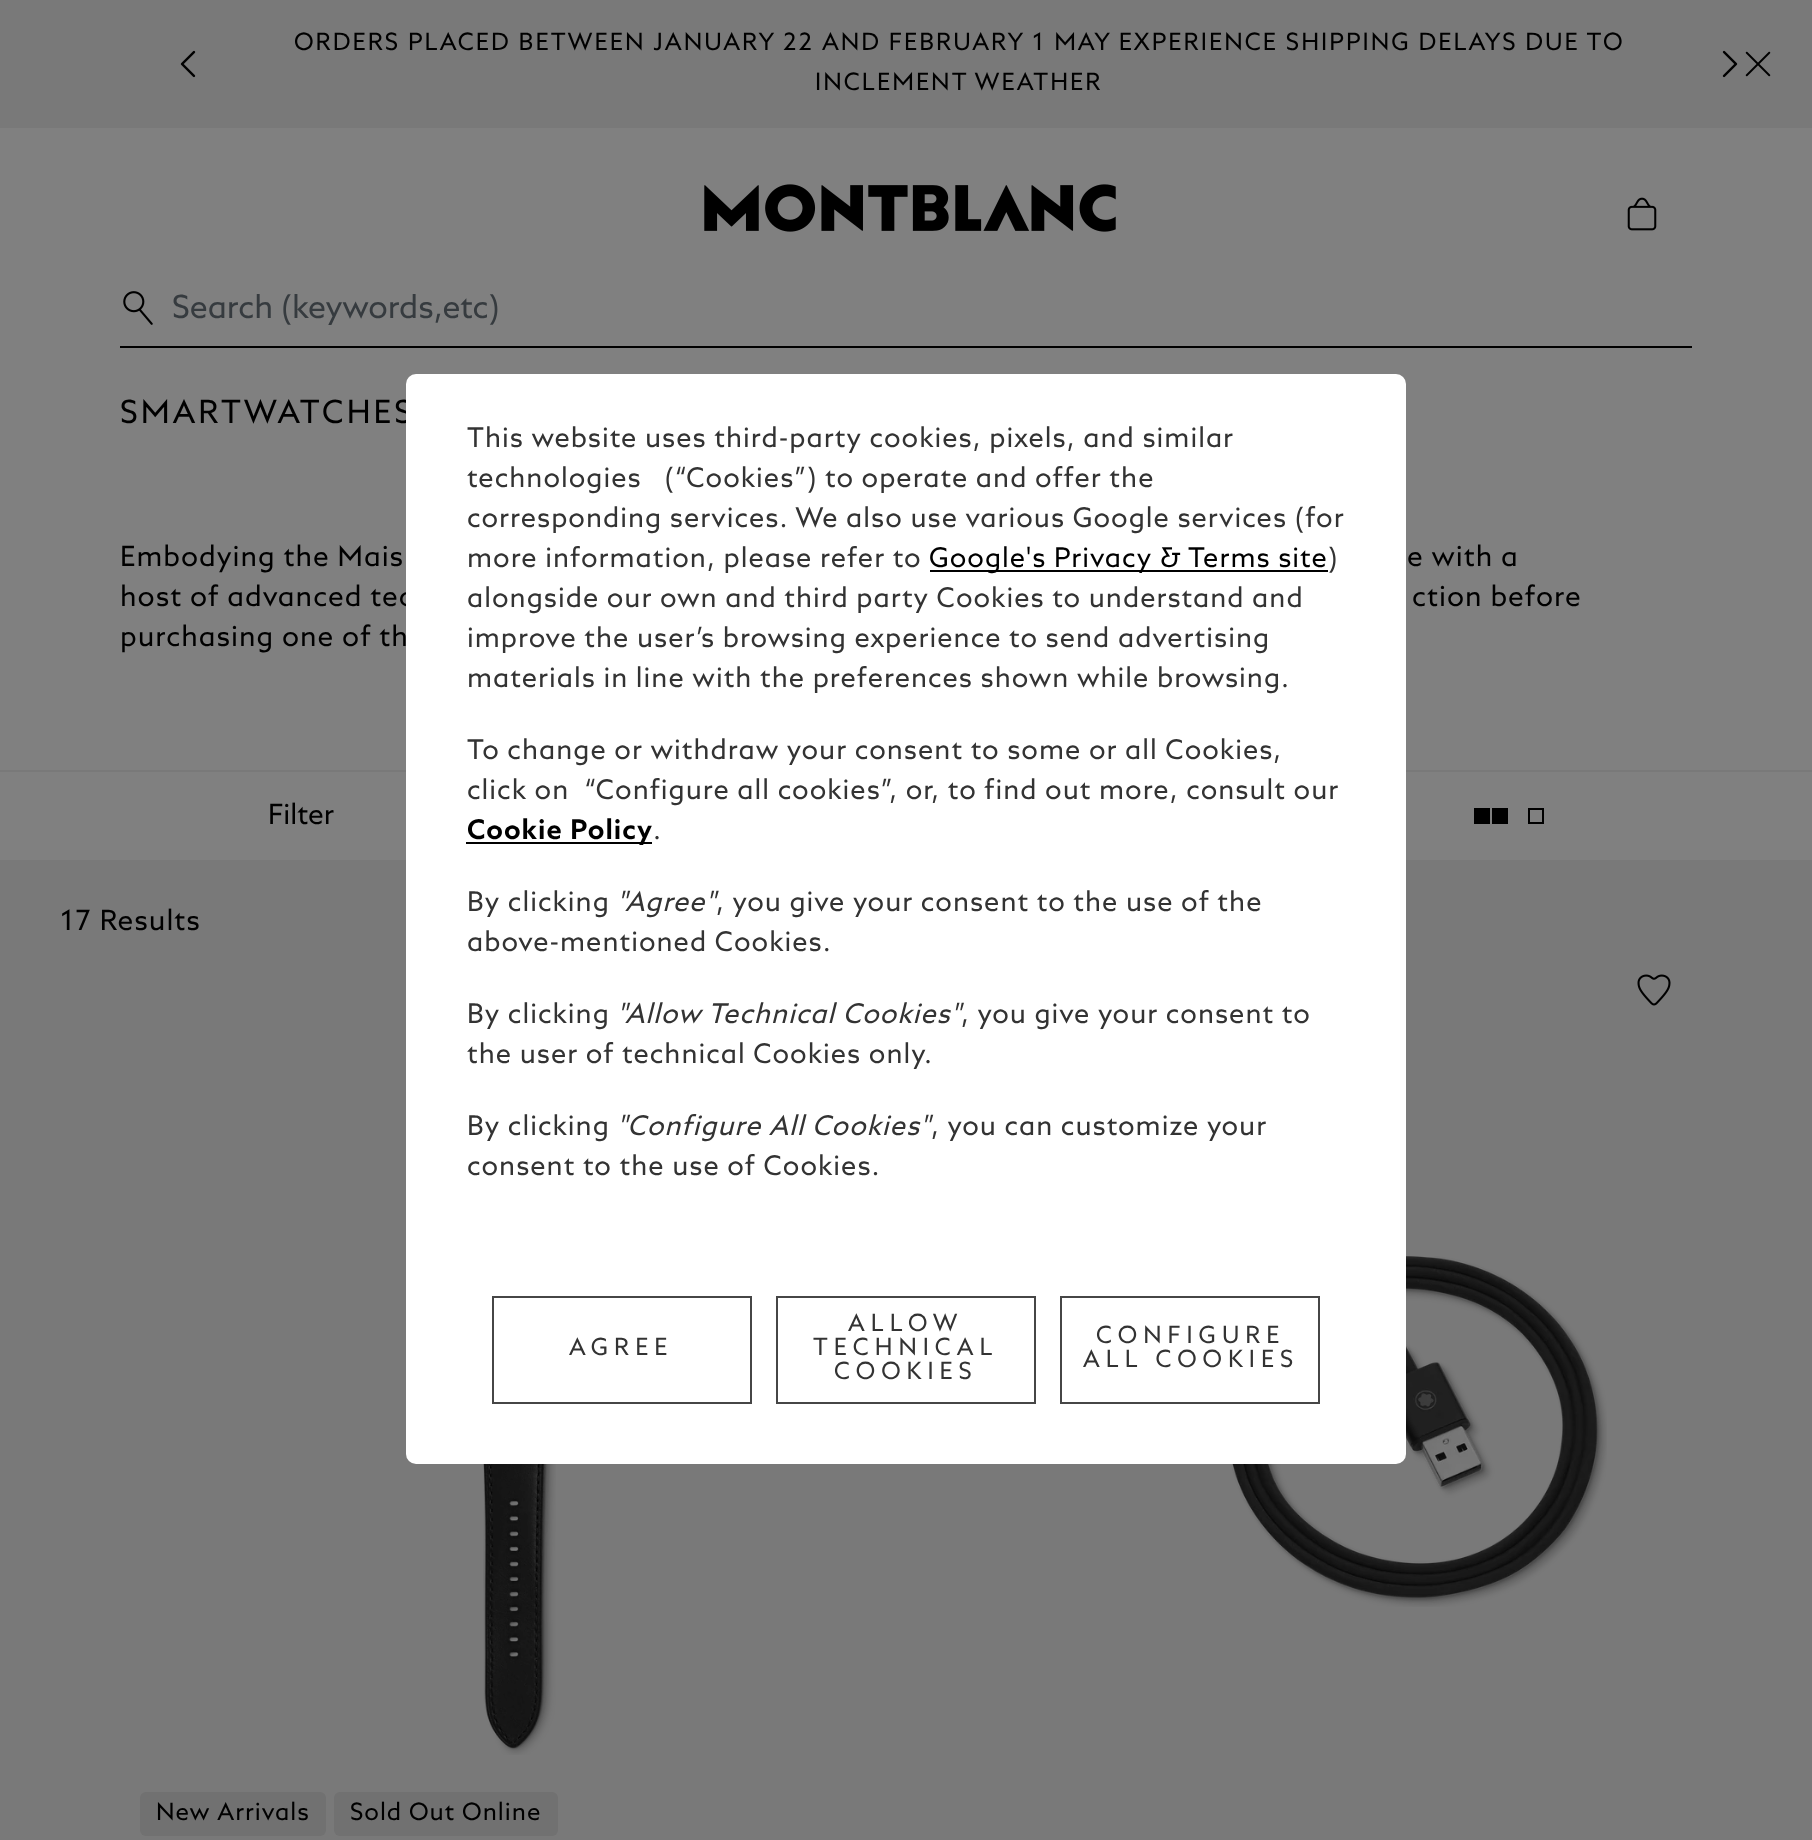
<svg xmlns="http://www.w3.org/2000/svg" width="1812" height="1840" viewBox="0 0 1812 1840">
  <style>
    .t1 { font: 24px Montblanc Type; letter-spacing: 2px; fill: #000; }
    .t2 { font: 32px Montblanc Type; fill: #363b3f; }
    .t3 { font: 32px Montblanc Type; letter-spacing: 3px; fill: #000; }
    .t4 { font: 28px Montblanc Type; letter-spacing: 1px; fill: #000; }
    .t5 { font: 28px Montblanc Type; fill: #000; }
    .t6 { font: 24px Montblanc Type; letter-spacing: 1px; fill: #000; }
    .t7 { font: 27.2px Montblanc Type; letter-spacing: 1px; fill: #333; }
    .t8 { font: 27.2px Montblanc Type; letter-spacing: 1px; fill: #000; }
    .t9 { font: bold 27.2px Montblanc Type; letter-spacing: 1px; fill: #000; }
    .t10 { font: italic 27.2px Montblanc Type; letter-spacing: 1px; fill: #333; }
    .t11 { font: 23.75px Montblanc Type; letter-spacing: 6px; fill: #333; }
  </style>
  <defs>
    <clipPath id="clip1"><rect x="172" y="294" width="1352" height="32"/></clipPath>
  </defs>
  <rect width="100%" height="100%" fill="#808080"/>
  <rect x="0" y="0" width="1812" height="128" fill="#797979"/>
  <image x="180" y="50" width="16" height="28" href="images/1.png"/>
  <text x="294" y="50" class="t1">ORDERS PLACED BETWEEN JANUARY 22 AND FEBRUARY 1 MAY EXPERIENCE SHIPPING DELAYS DUE TO</text>
  <text x="815" y="90" class="t1">INCLEMENT WEATHER</text>
  <image x="1722" y="50" width="16" height="28" href="images/2.png"/>
  <image x="1745" y="51" width="26" height="26" href="images/3.png"/>
  <image x="704" y="184" width="412" height="48" href="images/4.png"/>
  <image x="1627" y="197" width="30" height="34" href="images/5.png"/>
  <image x="123" y="291" width="30" height="34" href="images/6.png"/>
  <rect x="120" y="346" width="1572" height="2" fill="#000"/>
  <g clip-path="url(#clip1)">
    <text x="172" y="318" class="t2">Search (keywords,etc)</text>
  </g>
  <text x="120" y="423" class="t3">SMARTWATCHES</text>
  <text x="120" y="566" class="t4">Embodying the Mais</text>
  <text x="1407" y="566" class="t4">e with a</text>
  <text x="120" y="606" class="t4">host of advanced tec</text>
  <text x="1412" y="606" class="t4">ction before</text>
  <text x="120" y="646" class="t4">purchasing one of th</text>
  <rect x="0" y="770" width="1812" height="2" fill="#797979"/>
  <text x="268" y="824" class="t5">Filter</text>
  <rect x="1475" y="809" width="14" height="14" fill="none" stroke="#000" stroke-width="2"/>
  <rect x="1476" y="810" width="12" height="12" fill="#000"/>
  <rect x="1493" y="809" width="14" height="14" fill="none" stroke="#000" stroke-width="2"/>
  <rect x="1494" y="810" width="12" height="12" fill="#000"/>
  <rect x="1529" y="809" width="14" height="14" fill="none" stroke="#000" stroke-width="2"/>
  <rect x="0" y="860" width="1812" height="980" fill="#797979"/>
  <text x="60" y="930" class="t4">17 Results</text>
  <image x="1637" y="974" width="34" height="32" href="images/7.png"/>
  <image x="1231" y="1256" width="376" height="351" href="images/8.png"/>
  <image x="483" y="1464" width="73" height="291" href="images/9.png"/>
  <rect x="140" y="1792" width="186" height="44" rx="6" fill="#717171"/>
  <text x="156" y="1820" class="t6">New Arrivals</text>
  <rect x="334" y="1792" width="224" height="44" rx="6" fill="#717171"/>
  <text x="350" y="1820" class="t6">Sold Out Online</text>
  <rect x="406" y="374" width="1000" height="1090" rx="10" fill="#fff"/>
  <text x="467" y="447" class="t7">This website uses third-party cookies, pixels, and similar</text>
  <text x="467" y="487" class="t7" xml:space="preserve">technologies   (“Cookies”) to operate and offer the</text>
  <text x="467" y="527" class="t7">corresponding services. We also use various Google services (for</text>
  <text x="467" y="567" class="t7">more information, please refer to</text>
  <rect x="930" y="570" width="398" height="2" fill="#000"/>
  <text x="929" y="567" class="t8">Google's Privacy &amp; Terms site</text>
  <text x="1328" y="567" class="t7">)</text>
  <text x="467" y="607" class="t7">alongside our own and third party Cookies to understand and</text>
  <text x="467" y="647" class="t7">improve the user’s browsing experience to send advertising</text>
  <text x="467" y="687" class="t7">materials in line with the preferences shown while browsing.</text>
  <text x="467" y="759" class="t7">To change or withdraw your consent to some or all Cookies,</text>
  <text x="467" y="799" class="t7" xml:space="preserve">click on  “Configure all cookies”, or, to find out more, consult our</text>
  <rect x="466" y="842" width="186" height="2" fill="#000"/>
  <text x="467" y="839" class="t9">Cookie Policy</text>
  <text x="653" y="839" class="t7">.</text>
  <text x="467" y="911" class="t7">By clicking</text>
  <text x="617" y="911" class="t10">"Agree"</text>
  <text x="716" y="911" class="t7">, you give your consent to the use of the</text>
  <text x="467" y="951" class="t7">above-mentioned Cookies.</text>
  <text x="467" y="1023" class="t7">By clicking</text>
  <text x="617" y="1023" class="t10">"Allow Technical Cookies"</text>
  <text x="961" y="1023" class="t7">, you give your consent to</text>
  <text x="467" y="1063" class="t7">the user of technical Cookies only.</text>
  <text x="467" y="1135" class="t7">By clicking</text>
  <text x="617" y="1135" class="t10">"Configure All Cookies"</text>
  <text x="931" y="1135" class="t7">, you can customize your</text>
  <text x="467" y="1175" class="t7">consent to the use of Cookies.</text>
  <rect x="493" y="1297" width="258" height="106" fill="none" stroke="#464646" stroke-width="2"/>
  <text x="569" y="1355" class="t11">AGREE</text>
  <rect x="777" y="1297" width="258" height="106" fill="none" stroke="#464646" stroke-width="2"/>
  <text x="848" y="1331" class="t11">ALLOW</text>
  <text x="813" y="1355" class="t11">TECHNICAL</text>
  <text x="834" y="1379" class="t11">COOKIES</text>
  <rect x="1061" y="1297" width="258" height="106" fill="none" stroke="#464646" stroke-width="2"/>
  <text x="1096" y="1343" class="t11">CONFIGURE</text>
  <text x="1083" y="1367" class="t11">ALL COOKIES</text>
</svg>
